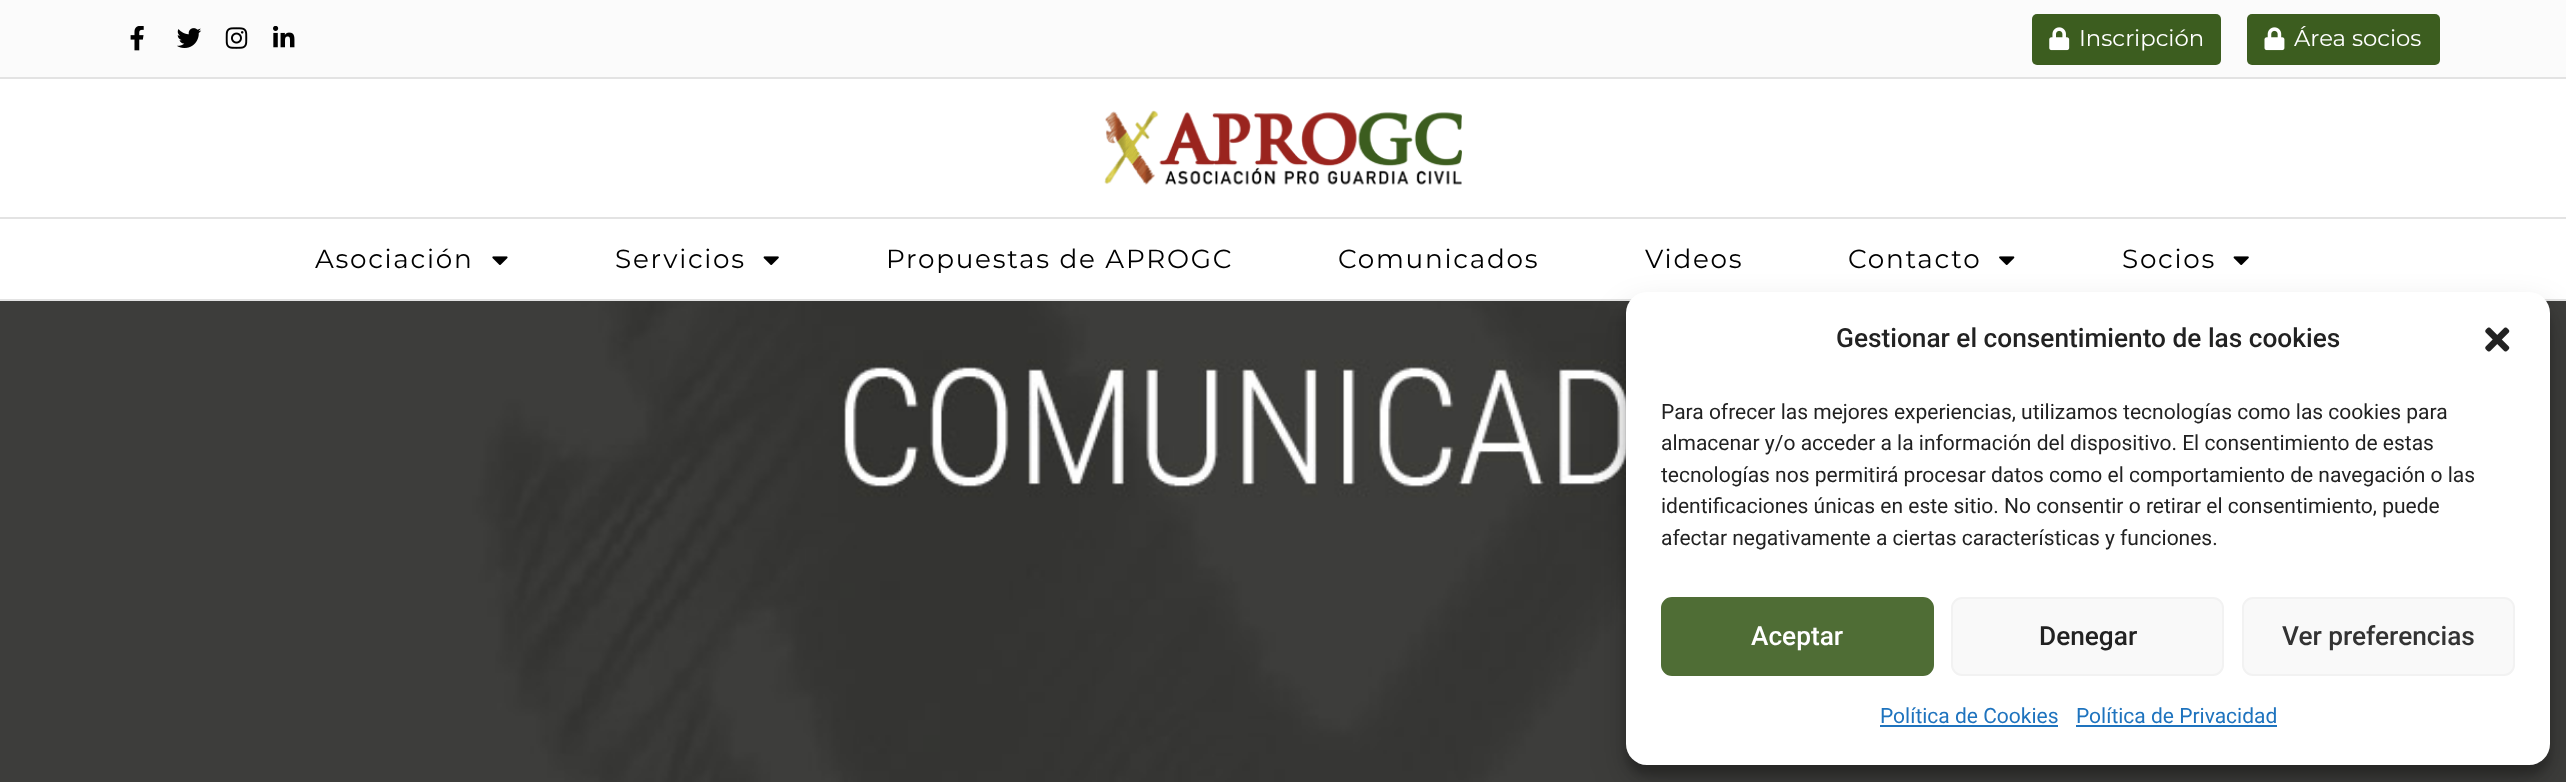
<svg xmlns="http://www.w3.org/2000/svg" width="2566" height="782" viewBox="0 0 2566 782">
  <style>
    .t1 { font: 22.75px Montserrat; fill: #fff; }
    .t2 { font: 26.25px Montserrat; letter-spacing: 1.75px; fill: #000; }
    .t3 { font: 500 26.25px Roboto; fill: #222; }
    .t4 { font: 21px Roboto; fill: #222; }
    .t5 { font: 500 26.25px Roboto; fill: #fff; }
    .t6 { font: 500 26.25px Roboto; fill: #333; }
    .t7 { font: 21px Roboto; fill: #1e73be; }
  </style>
  <rect width="100%" height="100%" fill="#fff"/>
  <rect x="0" y="0" width="2566" height="77" fill="#fbfbfb"/>
  <rect x="0" y="77" width="2566" height="2" fill="#e3e3e3"/>
  <image x="130" y="26" width="14" height="25" href="images/1.png"/>
  <image x="177" y="28" width="25" height="20" href="images/2.png"/>
  <image x="225" y="27" width="23" height="22" href="images/3.png"/>
  <image x="273" y="26" width="22" height="22" href="images/4.png"/>
  <rect x="2032" y="14" width="189" height="51" rx="5" fill="#3c5d1f"/>
  <image x="2049" y="27" width="21" height="24" href="images/5.png"/>
  <text x="2079" y="46" class="t1">Inscripción</text>
  <rect x="2247" y="14" width="193" height="51" rx="5" fill="#3c5d1f"/>
  <image x="2264" y="27" width="21" height="24" href="images/6.png"/>
  <text x="2294" y="46" class="t1">Área socios</text>
  <rect x="0" y="299" width="2566" height="2" fill="#e3e3e3"/>
  <image x="1104" y="110" width="358" height="75" href="images/7.png"/>
  <rect x="0" y="217" width="2566" height="2" fill="#e3e3e3"/>
  <text x="315" y="268" class="t2">Asociación</text>
  <image x="492" y="256" width="16" height="9" href="images/8.png"/>
  <text x="615" y="268" class="t2">Servicios</text>
  <image x="763" y="256" width="16" height="9" href="images/9.png"/>
  <text x="886" y="268" class="t2">Propuestas de APROGC</text>
  <text x="1338" y="268" class="t2">Comunicados</text>
  <text x="1645" y="268" class="t2">Videos</text>
  <text x="1848" y="268" class="t2">Contacto</text>
  <image x="1999" y="256" width="16" height="9" href="images/10.png"/>
  <text x="2122" y="268" class="t2">Socios</text>
  <image x="2233" y="256" width="16" height="9" href="images/9.png"/>
  <image x="0" y="301" width="2566" height="481" href="images/11.png"/>
  <rect x="1626" y="303" width="924" height="472" rx="21" fill="#0000003b" filter="blur(5px)"/>
  <rect x="1626" y="310" width="924" height="472" rx="21" fill="#00000030" filter="blur(17.5px)"/>
  <rect x="1626" y="292" width="924" height="473" rx="21" fill="#fff"/>
  <text x="1836" y="347" class="t3">Gestionar el consentimiento de las cookies</text>
  <image x="2485" y="327" width="25" height="25" href="images/12.png"/>
  <text x="1661" y="419" class="t4">Para ofrecer las mejores experiencias, utilizamos tecnologías como las cookies para</text>
  <text x="1661" y="450" class="t4">almacenar y/o acceder a la información del dispositivo. El consentimiento de estas</text>
  <text x="1661" y="482" class="t4">tecnologías nos permitirá procesar datos como el comportamiento de navegación o las</text>
  <text x="1661" y="513" class="t4">identificaciones únicas en este sitio. No consentir o retirar el consentimiento, puede</text>
  <text x="1661" y="545" class="t4">afectar negativamente a ciertas características y funciones.</text>
  <rect x="1662" y="598" width="271" height="77" rx="10" fill="#4f6d35" stroke="#4f6d35" stroke-width="2"/>
  <text x="1751" y="645" class="t5">Aceptar</text>
  <rect x="1952" y="598" width="271" height="77" rx="10" fill="#f9f9f9" stroke="#f2f2f2" stroke-width="2"/>
  <text x="2039" y="645" class="t3">Denegar</text>
  <rect x="2243" y="598" width="271" height="77" rx="10" fill="#f9f9f9" stroke="#f2f2f2" stroke-width="2"/>
  <text x="2282" y="645" class="t6">Ver preferencias</text>
  <text x="1880" y="723" class="t7">Política de Cookies</text>
  <rect x="1880" y="725" width="178" height="2" fill="#1e73be"/>
  <text x="2076" y="723" class="t7">Política de Privacidad</text>
  <rect x="2076" y="725" width="201" height="2" fill="#1e73be"/>
</svg>
